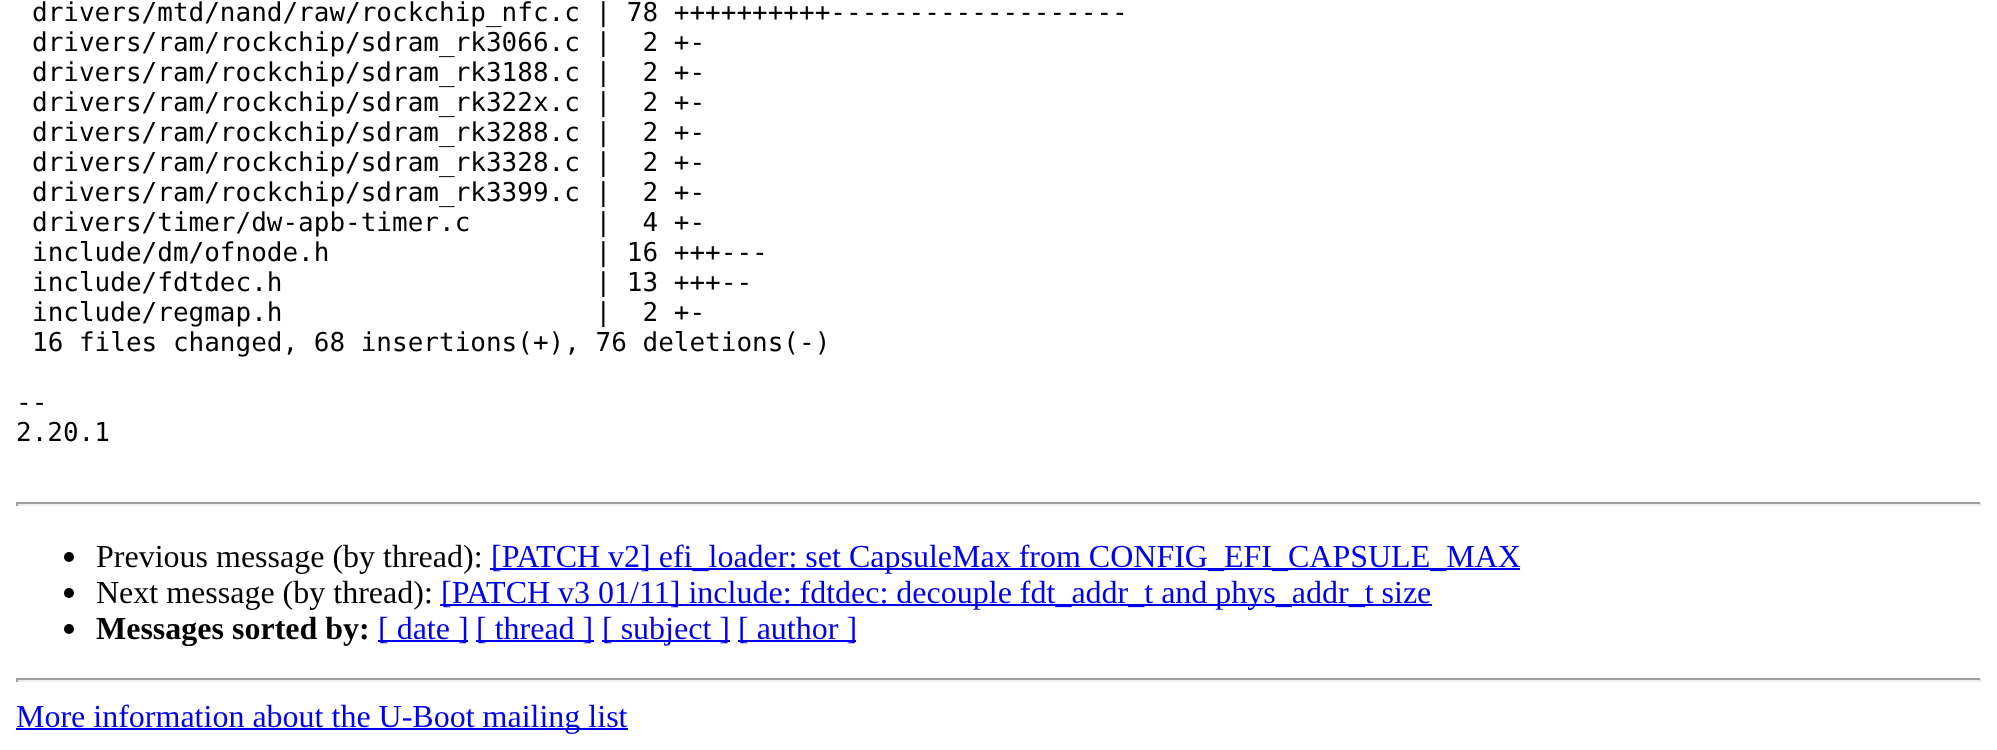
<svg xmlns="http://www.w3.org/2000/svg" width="1997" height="750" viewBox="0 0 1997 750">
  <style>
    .t1 { font: 26px DejaVu Sans Mono; fill: #000; }
    .t2 { font: 32px Liberation Serif; fill: #000; }
    .t3 { font: 32px Liberation Serif; fill: #00e; }
    .t4 { font: bold 32px Liberation Serif; fill: #000; }
  </style>
  <rect width="100%" height="100%" fill="#fff"/>
  <text x="32" y="21" class="t1">drivers/mtd/nand/raw/rockchip_nfc.c | 78 ++++++++++-------------------</text>
  <text x="32" y="51" class="t1" xml:space="preserve">drivers/ram/rockchip/sdram_rk3066.c |  2 +-</text>
  <text x="32" y="81" class="t1" xml:space="preserve">drivers/ram/rockchip/sdram_rk3188.c |  2 +-</text>
  <text x="32" y="111" class="t1" xml:space="preserve">drivers/ram/rockchip/sdram_rk322x.c |  2 +-</text>
  <text x="32" y="141" class="t1" xml:space="preserve">drivers/ram/rockchip/sdram_rk3288.c |  2 +-</text>
  <text x="32" y="171" class="t1" xml:space="preserve">drivers/ram/rockchip/sdram_rk3328.c |  2 +-</text>
  <text x="32" y="201" class="t1" xml:space="preserve">drivers/ram/rockchip/sdram_rk3399.c |  2 +-</text>
  <text x="32" y="231" class="t1" xml:space="preserve">drivers/timer/dw-apb-timer.c        |  4 +-</text>
  <text x="32" y="261" class="t1" xml:space="preserve">include/dm/ofnode.h                 | 16 +++---</text>
  <text x="32" y="291" class="t1" xml:space="preserve">include/fdtdec.h                    | 13 +++--</text>
  <text x="32" y="321" class="t1" xml:space="preserve">include/regmap.h                    |  2 +-</text>
  <text x="32" y="351" class="t1">16 files changed, 68 insertions(+), 76 deletions(-)</text>
  <text x="16" y="411" class="t1">--</text>
  <text x="16" y="441" class="t1">2.20.1</text>
  <rect x="16" y="502" width="1966" height="2" fill="#9f9f9f"/>
  <rect x="1980" y="502" width="2" height="4" fill="#eee"/>
  <rect x="16" y="504" width="1966" height="2" fill="#eee"/>
  <rect x="16" y="502" width="2" height="4" fill="#9f9f9f"/>
  <circle cx="69" cy="557" r="5" fill="#000"/>
  <text x="96" y="567" class="t2">Previous message (by thread):</text>
  <rect x="490" y="568" width="1030" height="2" fill="#00e"/>
  <text x="491" y="567" class="t3">[PATCH v2] efi_loader: set CapsuleMax from CONFIG_EFI_CAPSULE_MAX</text>
  <circle cx="69" cy="593" r="5" fill="#000"/>
  <text x="96" y="603" class="t2">Next message (by thread):</text>
  <rect x="440" y="604" width="992" height="2" fill="#00e"/>
  <text x="441" y="603" class="t3">[PATCH v3 01/11] include: fdtdec: decouple fdt_addr_t and phys_addr_t size</text>
  <circle cx="69" cy="629" r="5" fill="#000"/>
  <text x="96" y="639" class="t4">Messages sorted by:</text>
  <rect x="378" y="640" width="90" height="2" fill="#00e"/>
  <text x="378" y="639" class="t3">[ date ]</text>
  <rect x="476" y="640" width="118" height="2" fill="#00e"/>
  <text x="476" y="639" class="t3">[ thread ]</text>
  <rect x="602" y="640" width="128" height="2" fill="#00e"/>
  <text x="602" y="639" class="t3">[ subject ]</text>
  <rect x="738" y="640" width="118" height="2" fill="#00e"/>
  <text x="738" y="639" class="t3">[ author ]</text>
  <rect x="16" y="678" width="1966" height="2" fill="#9f9f9f"/>
  <rect x="1980" y="678" width="2" height="4" fill="#eee"/>
  <rect x="16" y="680" width="1966" height="2" fill="#eee"/>
  <rect x="16" y="678" width="2" height="4" fill="#9f9f9f"/>
  <rect x="16" y="728" width="612" height="2" fill="#00e"/>
  <text x="16" y="727" class="t3">More information about the U-Boot mailing list</text>
</svg>
